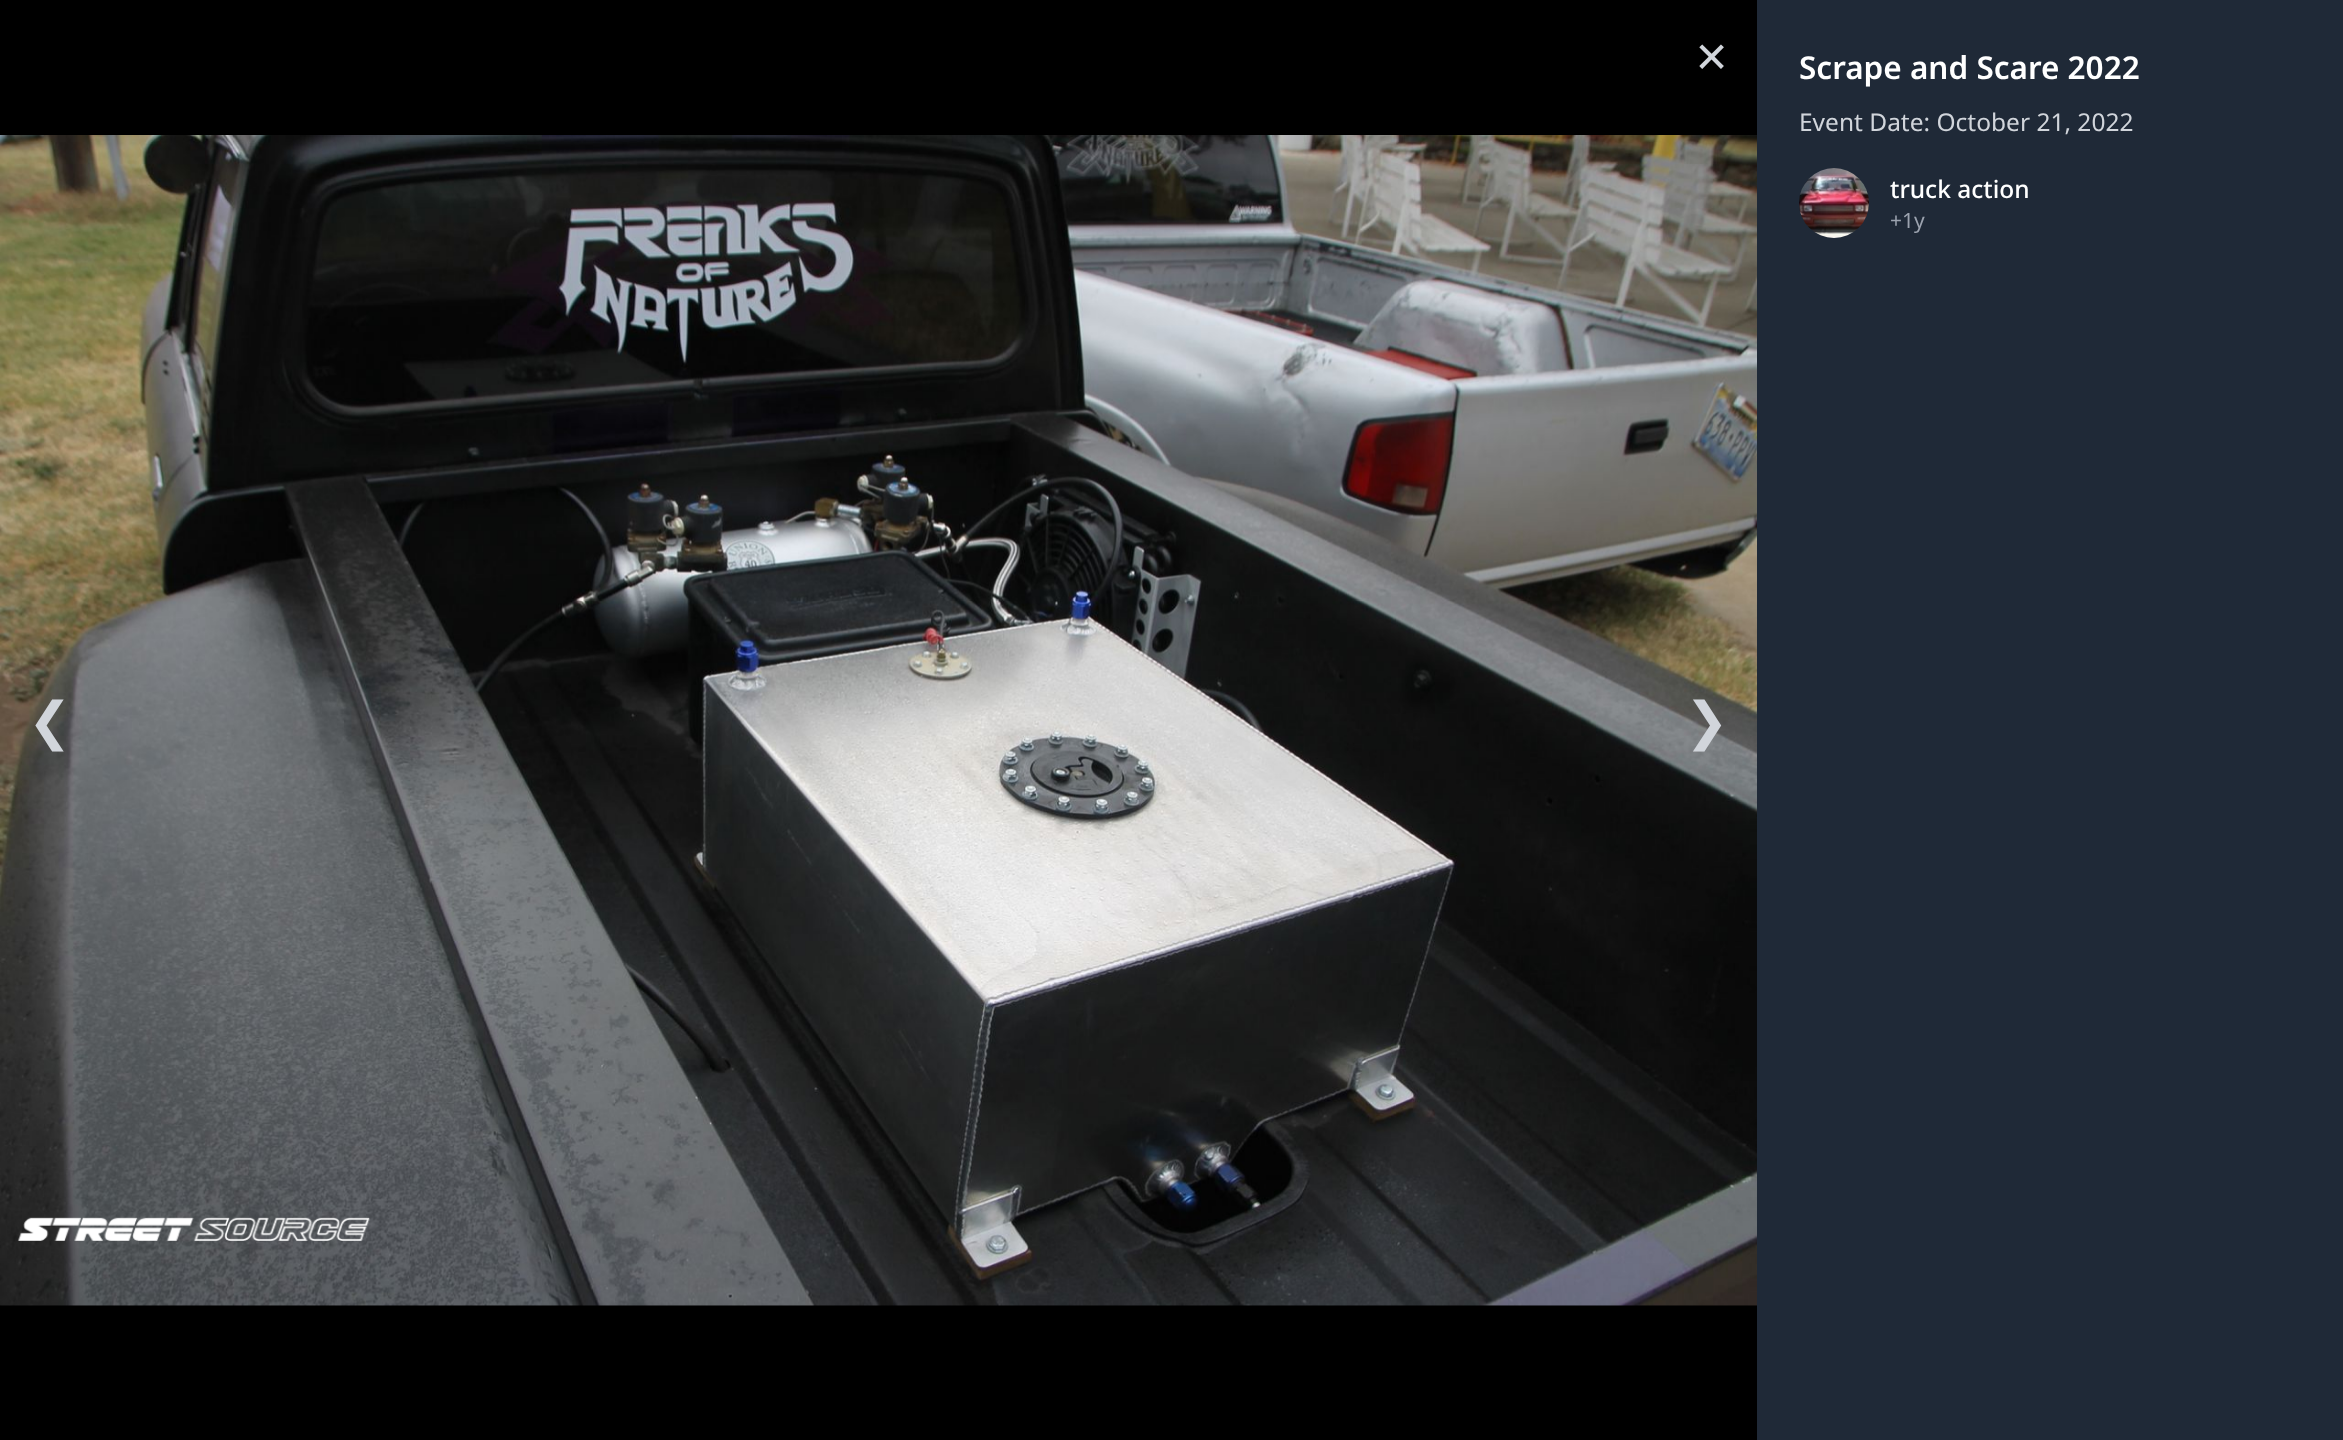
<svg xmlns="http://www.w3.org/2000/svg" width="2343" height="1440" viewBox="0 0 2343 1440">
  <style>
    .t1 { font: 42px DejaVu Sans; fill: #d1d5db; }
    .t2 { font: 52px DejaVu Sans; fill: #d1d5db; }
    .t3 { font: 600 31.5px Noto Sans; fill: #fff; }
    .t4 { font: 24.5px Noto Sans; fill: #d1d5db; }
    .t5 { font: 500 24.5px Noto Sans; fill: #fff; }
    .t6 { font: 21px Noto Sans; fill: #9ca3af; }
  </style>
  <rect width="100%" height="100%" fill="#1f2937"/>
  <rect x="0" y="0" width="1757" height="1440" fill="#000"/>
  <text x="1694" y="72" class="t1">✕</text>
  <image x="0" y="135" width="1757" height="1171" href="images/1.png"/>
  <text x="28" y="739" class="t2">❮</text>
  <text x="1685" y="739" class="t2">❯</text>
  <image x="17" y="1217" width="353" height="24" href="images/2.png"/>
  <text x="1799" y="79" class="t3">Scrape and Scare 2022</text>
  <text x="1799" y="131" class="t4">Event Date: October 21, 2022</text>
  <image x="1799" y="168" width="70" height="70" href="images/3.png"/>
  <text x="1890" y="198" class="t5">truck action</text>
  <text x="1890" y="228" class="t6">+1y</text>
</svg>
